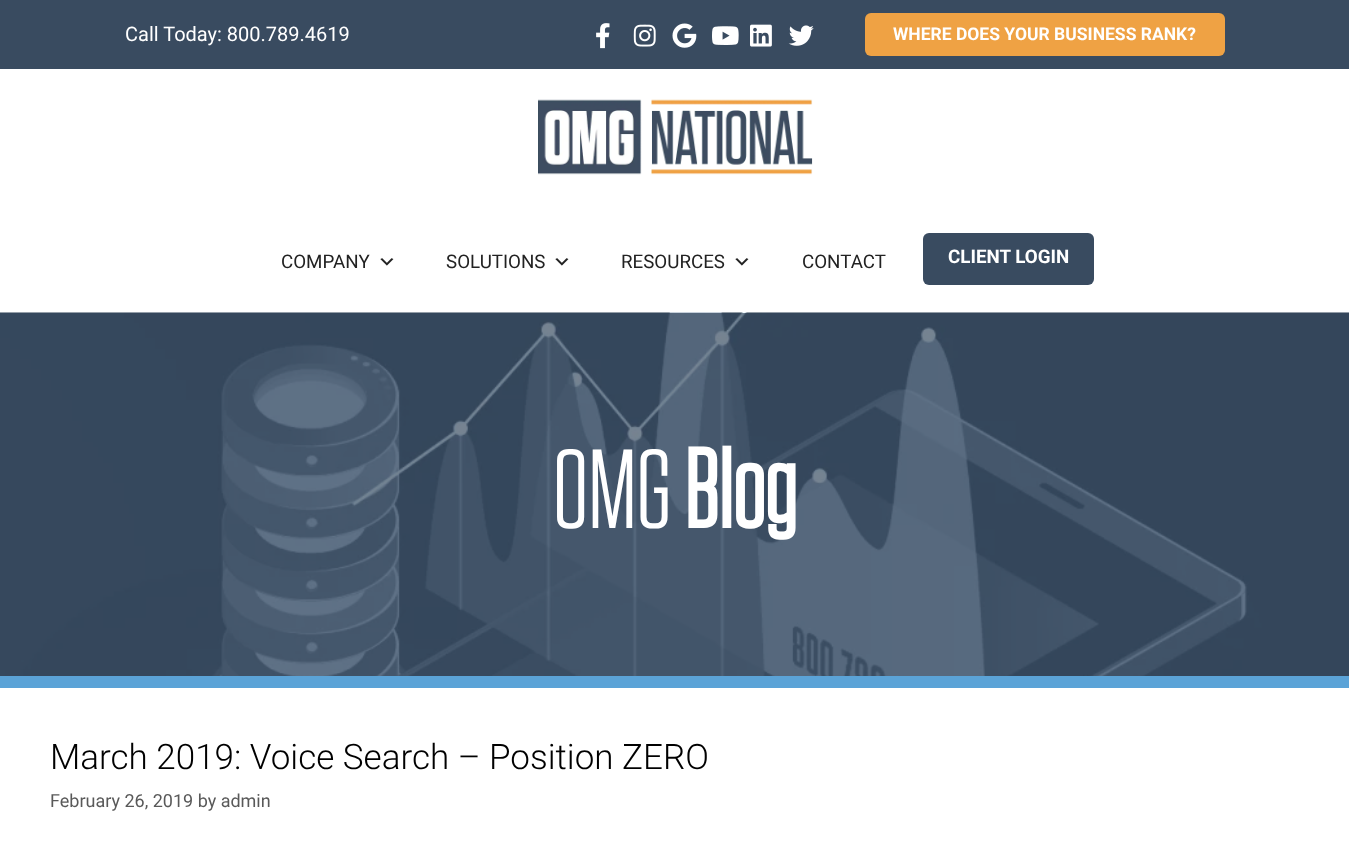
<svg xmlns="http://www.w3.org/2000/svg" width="1349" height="868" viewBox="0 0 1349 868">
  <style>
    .t1 { font: 20px Roboto; fill: #fff; }
    .t2 { font: bold 17.5px Roboto; fill: #fff; }
    .t3 { font: 18.75px Roboto; fill: #222; }
    .t4 { font: bold 18.75px Roboto; fill: #fff; }
    .t5 { font: 112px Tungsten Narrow; fill: #fff; }
    .t6 { font: bold 112px Tungsten Narrow; fill: #fff; }
    .t7 { font: 300 35px Roboto; fill: #000; }
    .t8 { font: 18px Roboto; fill: #595959; }
  </style>
  <rect width="100%" height="100%" fill="#fff"/>
  <rect x="0" y="0" width="1349" height="69" fill="#394b60"/>
  <text x="125" y="41" class="t1">Call Today: 800.789.4619</text>
  <image x="596" y="23" width="14" height="26" href="images/1.png"/>
  <image x="633" y="24" width="23" height="23" href="images/2.png"/>
  <image x="672" y="23" width="25" height="25" href="images/3.png"/>
  <image x="712" y="26" width="27" height="19" href="images/4.png"/>
  <image x="750" y="24" width="22" height="23" href="images/5.png"/>
  <image x="788" y="25" width="26" height="21" href="images/6.png"/>
  <rect x="865" y="13" width="360" height="43" rx="6" fill="#efa244"/>
  <text x="893" y="40" class="t2">WHERE DOES YOUR BUSINESS RANK?</text>
  <image x="538" y="99" width="275" height="76" href="images/7.png"/>
  <text x="281" y="268" class="t3">COMPANY</text>
  <image x="380" y="258" width="14" height="8" href="images/8.png"/>
  <text x="446" y="268" class="t3">SOLUTIONS</text>
  <image x="555" y="258" width="14" height="8" href="images/8.png"/>
  <text x="621" y="268" class="t3">RESOURCES</text>
  <image x="735" y="258" width="14" height="8" href="images/8.png"/>
  <text x="802" y="268" class="t3">CONTACT</text>
  <rect x="923" y="233" width="171" height="52" rx="6" fill="#394b60"/>
  <text x="948" y="263" class="t4">CLIENT LOGIN</text>
  <image x="0" y="312" width="1349" height="364" href="images/9.png"/>
  <rect x="0" y="676" width="1349" height="12" fill="#5ba3d7"/>
  <text x="553" y="528" class="t5">OMG</text>
  <text x="684" y="528" class="t6">Blog</text>
  <text x="50" y="769" class="t7">March 2019: Voice Search – Position ZERO</text>
  <text x="50" y="807" class="t8">February 26, 2019 by admin</text>
</svg>
